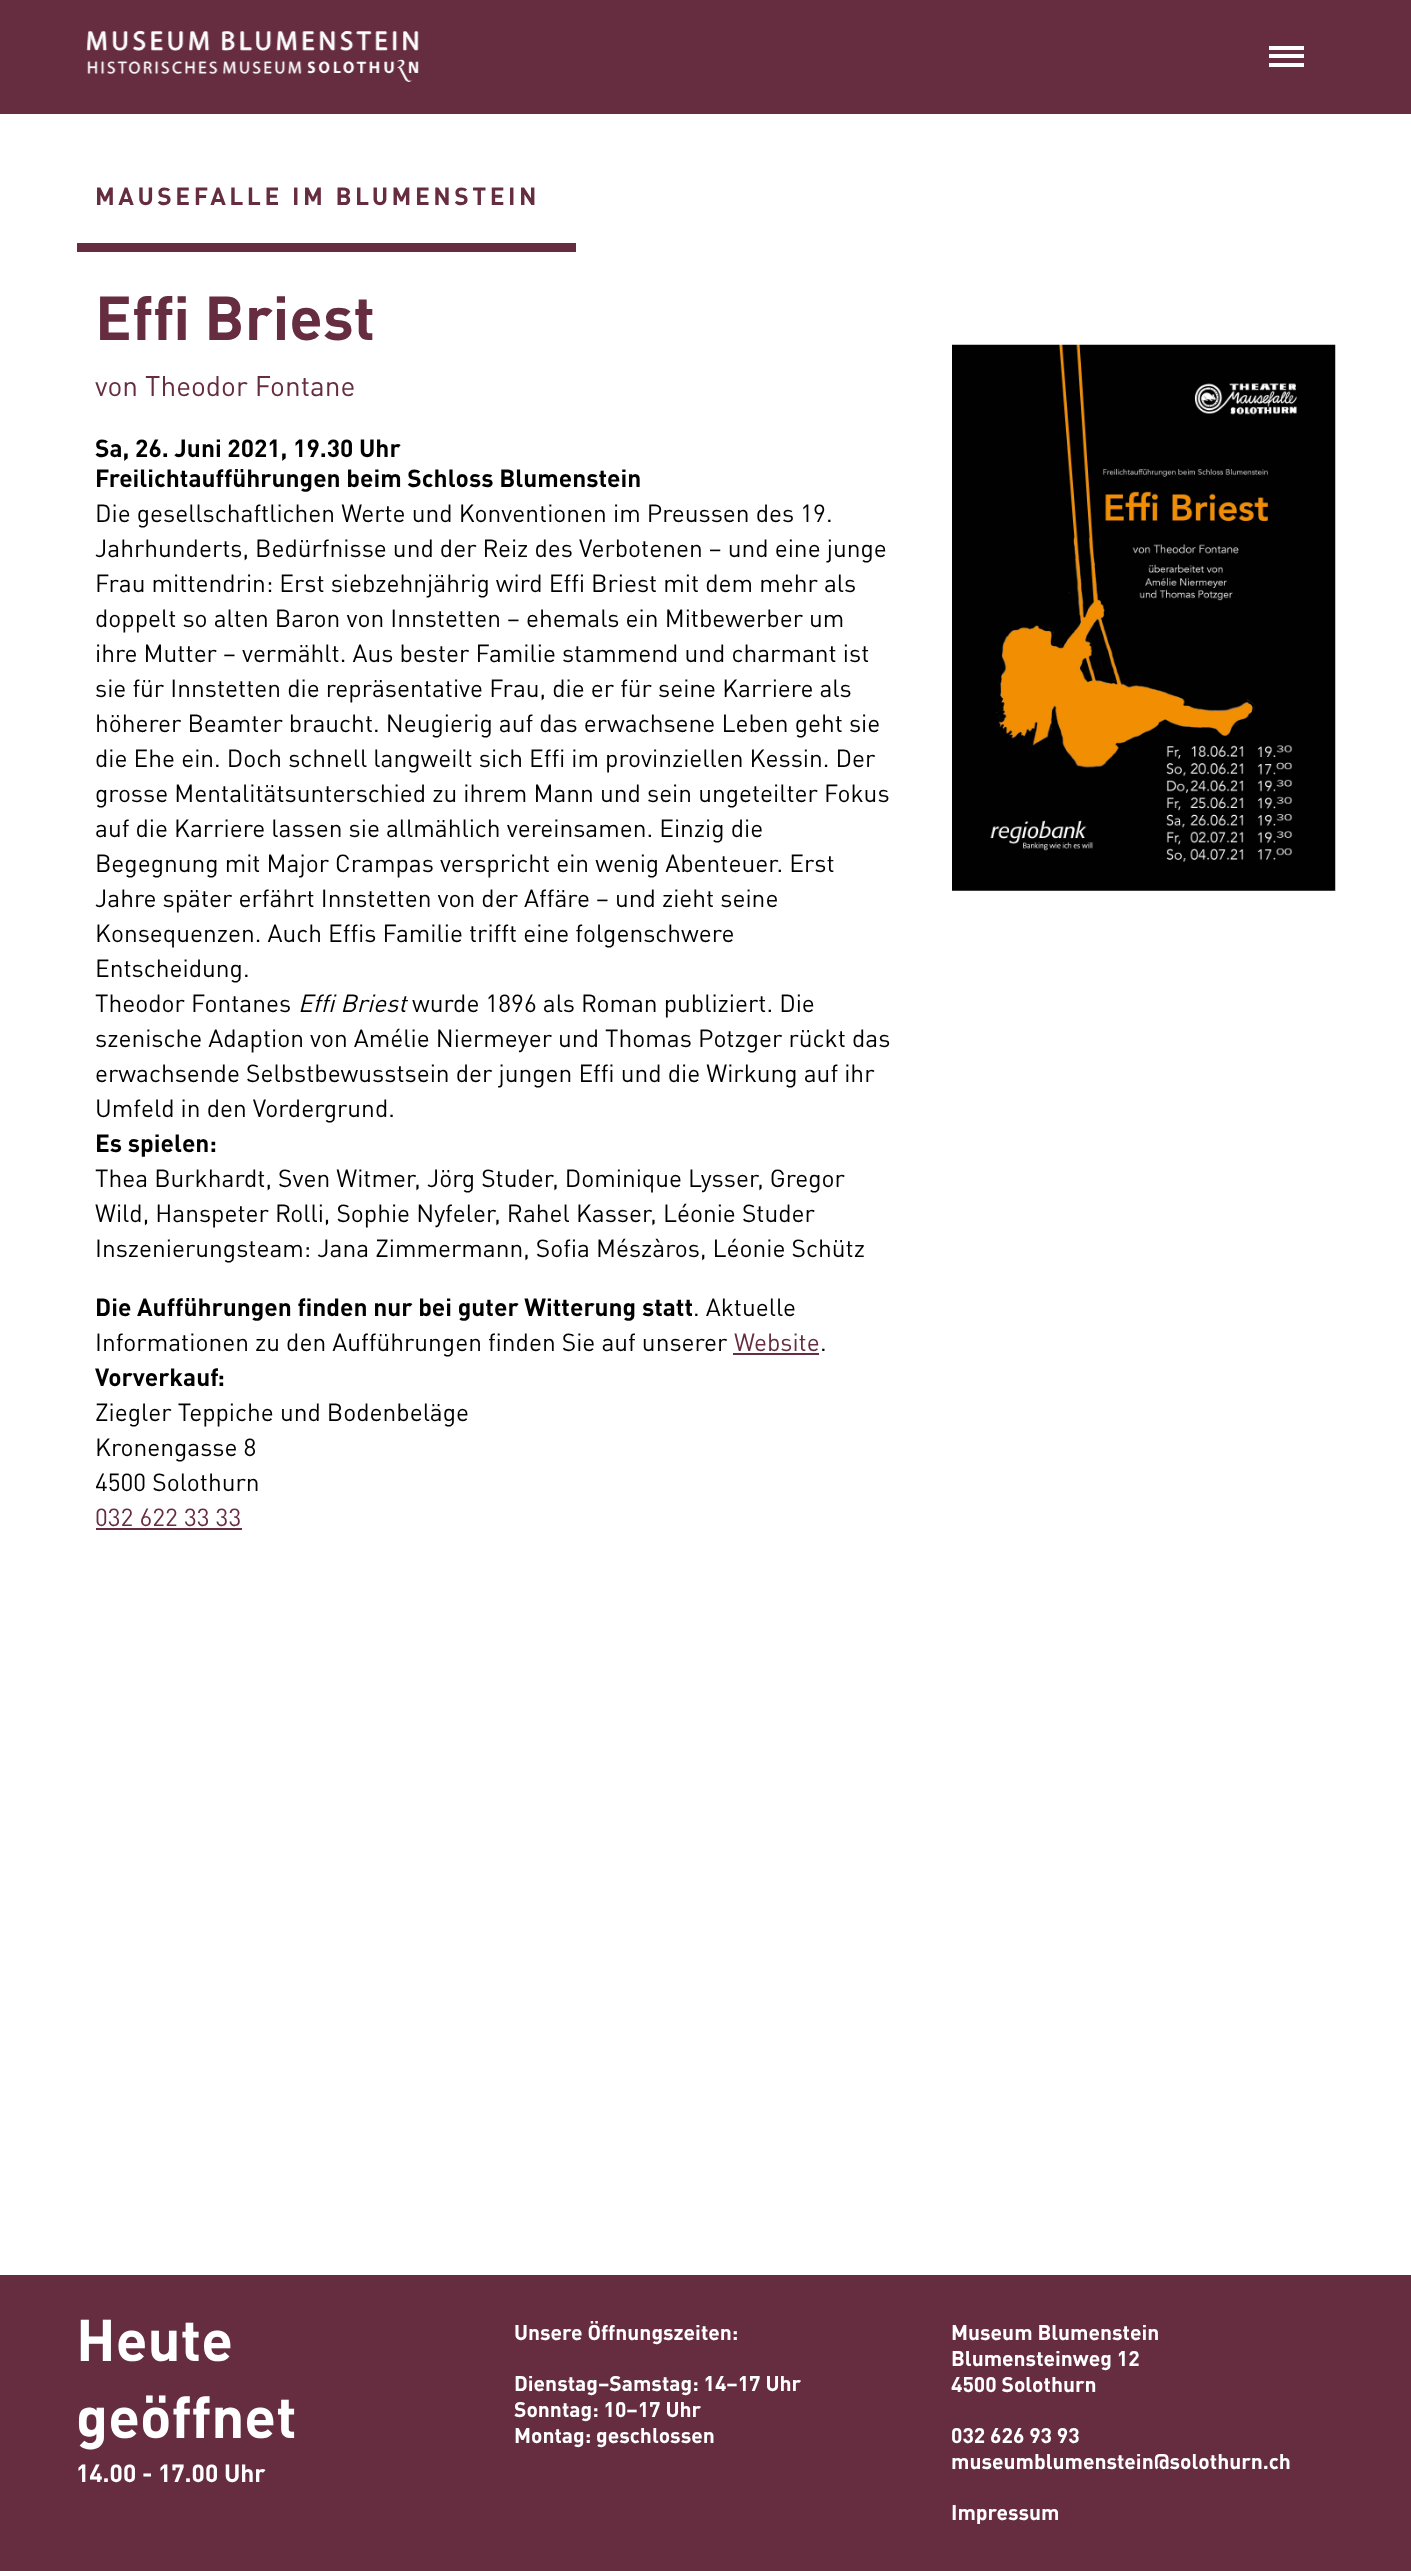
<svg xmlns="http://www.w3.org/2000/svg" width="1411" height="2571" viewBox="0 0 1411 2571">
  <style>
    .t1 { font: 24.5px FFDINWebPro; letter-spacing: 3.5px; fill: #652d3f; }
    .t2 { font: 61.25px FFDINWebPro; fill: #652d3f; }
    .t3 { font: 28px 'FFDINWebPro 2'; fill: #652d3f; }
    .t4 { font: 24.5px FFDINWebPro; fill: #000; }
    .t5 { font: 24.5px 'FFDINWebPro 2'; fill: #000; }
    .t6 { font: italic 24.5px FFDINWebPro; fill: #000; }
    .t7 { font: 24.5px 'FFDINWebPro 2'; fill: #652d3f; }
    .t8 { font: 58px FFDINWebPro; fill: #fff; }
    .t9 { font: 24.5px FFDINWebPro; fill: #fff; }
    .t10 { font: 21px FFDINWebPro; fill: #fff; }
  </style>
  <rect width="100%" height="100%" fill="#fff"/>
  <rect x="0" y="0" width="1411" height="114" fill="#652d3f"/>
  <image x="86" y="30" width="333" height="52" href="images/1.png"/>
  <rect x="1269" y="46" width="35" height="4" fill="#fff"/>
  <rect x="1269" y="54" width="35" height="4" fill="#fff"/>
  <rect x="1269" y="63" width="35" height="4" fill="#fff"/>
  <text x="95" y="205" class="t1">MAUSEFALLE IM BLUMENSTEIN</text>
  <rect x="77" y="243" width="499" height="9" fill="#652d3f"/>
  <text x="95" y="340" class="t2">Effi Briest</text>
  <text x="95" y="396" class="t3">von Theodor Fontane</text>
  <text x="95" y="457" class="t4">Sa, 26. Juni 2021, 19.30 Uhr</text>
  <text x="95" y="487" class="t4">Freilichtaufführungen beim Schloss Blumenstein</text>
  <text x="95" y="522" class="t5">Die gesellschaftlichen Werte und Konventionen im Preussen des 19.</text>
  <text x="95" y="557" class="t5">Jahrhunderts, Bedürfnisse und der Reiz des Verbotenen – und eine junge</text>
  <text x="95" y="592" class="t5">Frau mittendrin: Erst siebzehnjährig wird Effi Briest mit dem mehr als</text>
  <text x="95" y="627" class="t5">doppelt so alten Baron von Innstetten – ehemals ein Mitbewerber um</text>
  <text x="95" y="662" class="t5">ihre Mutter – vermählt. Aus bester Familie stammend und charmant ist</text>
  <text x="95" y="697" class="t5">sie für Innstetten die repräsentative Frau, die er für seine Karriere als</text>
  <text x="95" y="732" class="t5">höherer Beamter braucht. Neugierig auf das erwachsene Leben geht sie</text>
  <text x="95" y="767" class="t5">die Ehe ein. Doch schnell langweilt sich Effi im provinziellen Kessin. Der</text>
  <text x="95" y="802" class="t5">grosse Mentalitätsunterschied zu ihrem Mann und sein ungeteilter Fokus</text>
  <text x="95" y="837" class="t5">auf die Karriere lassen sie allmählich vereinsamen. Einzig die</text>
  <text x="95" y="872" class="t5">Begegnung mit Major Crampas verspricht ein wenig Abenteuer. Erst</text>
  <text x="95" y="907" class="t5">Jahre später erfährt Innstetten von der Affäre – und zieht seine</text>
  <text x="95" y="942" class="t5">Konsequenzen. Auch Effis Familie trifft eine folgenschwere</text>
  <text x="95" y="977" class="t5">Entscheidung.</text>
  <text x="95" y="1012" class="t5">Theodor Fontanes</text>
  <text x="298" y="1012" class="t6">Effi Briest</text>
  <text x="412" y="1012" class="t5">wurde 1896 als Roman publiziert. Die</text>
  <text x="95" y="1047" class="t5">szenische Adaption von Amélie Niermeyer und Thomas Potzger rückt das</text>
  <text x="95" y="1082" class="t5">erwachsende Selbstbewusstsein der jungen Effi und die Wirkung auf ihr</text>
  <text x="95" y="1117" class="t5">Umfeld in den Vordergrund.</text>
  <text x="95" y="1152" class="t4">Es spielen:</text>
  <text x="95" y="1187" class="t5">Thea Burkhardt, Sven Witmer, Jörg Studer, Dominique Lysser, Gregor</text>
  <text x="95" y="1222" class="t5">Wild, Hanspeter Rolli, Sophie Nyfeler, Rahel Kasser, Léonie Studer</text>
  <text x="95" y="1257" class="t5">Inszenierungsteam: Jana Zimmermann, Sofia Mészàros, Léonie Schütz</text>
  <text x="95" y="1316" class="t4">Die Aufführungen finden nur bei guter Witterung statt</text>
  <text x="693" y="1316" class="t5">. Aktuelle</text>
  <text x="95" y="1351" class="t5">Informationen zu den Aufführungen finden Sie auf unserer</text>
  <text x="734" y="1351" class="t7">Website</text>
  <rect x="733" y="1353" width="86" height="2" fill="#652d3f"/>
  <text x="820" y="1351" class="t5">.</text>
  <text x="95" y="1386" class="t4">Vorverkauf:</text>
  <text x="95" y="1421" class="t5">Ziegler Teppiche und Bodenbeläge</text>
  <text x="95" y="1456" class="t5">Kronengasse 8</text>
  <text x="95" y="1491" class="t5">4500 Solothurn</text>
  <text x="95" y="1526" class="t7">032 622 33 33</text>
  <rect x="96" y="1528" width="146" height="2" fill="#652d3f"/>
  <image x="952" y="344" width="384" height="547" href="images/2.png"/>
  <rect x="0" y="2275" width="1411" height="296" fill="#652d3f"/>
  <text x="76" y="2361" class="t8">Heute</text>
  <text x="76" y="2438" class="t8">geöffnet</text>
  <text x="76" y="2482" class="t9">14.00 - 17.00 Uhr</text>
  <text x="514" y="2340" class="t10">Unsere Öffnungszeiten:</text>
  <text x="514" y="2391" class="t10">Dienstag–Samstag: 14–17 Uhr</text>
  <text x="514" y="2417" class="t10">Sonntag: 10–17 Uhr</text>
  <text x="514" y="2443" class="t10">Montag: geschlossen</text>
  <text x="951" y="2340" class="t10">Museum Blumenstein</text>
  <text x="951" y="2366" class="t10">Blumensteinweg 12</text>
  <text x="951" y="2392" class="t10">4500 Solothurn</text>
  <text x="951" y="2443" class="t10">032 626 93 93</text>
  <text x="951" y="2469" class="t10">museumblumenstein@solothurn.ch</text>
  <text x="951" y="2520" class="t10">Impressum</text>
</svg>
